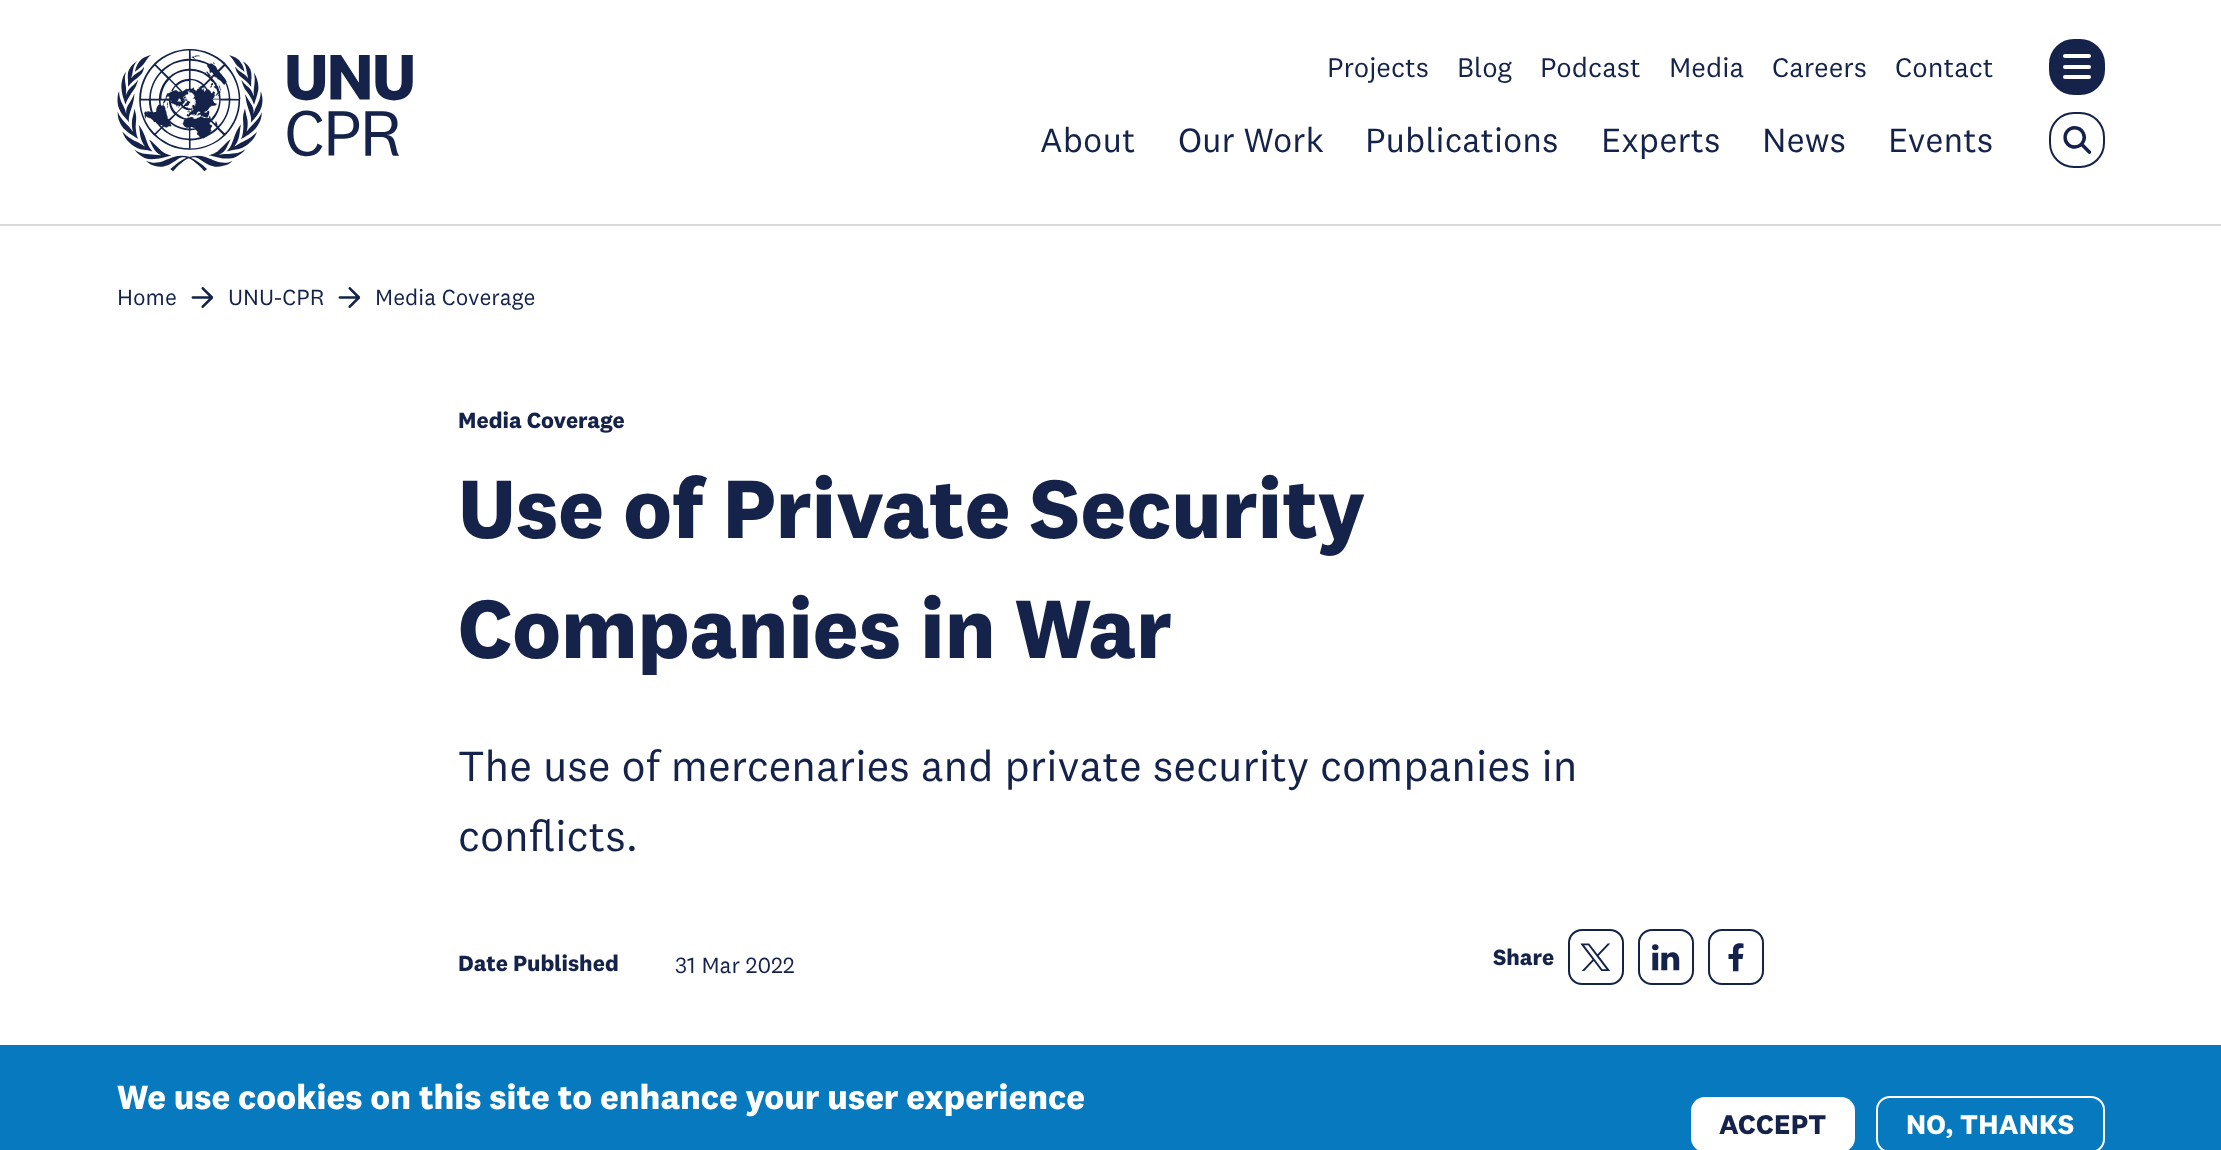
<svg xmlns="http://www.w3.org/2000/svg" width="2221" height="1150" viewBox="0 0 2221 1150">
  <style>
    .t1 { font: 28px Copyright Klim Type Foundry; fill: #15234a; }
    .t2 { font: 35px Copyright Klim Type Foundry; fill: #15234a; }
    .t3 { font: 22.75px Copyright Klim Type Foundry; fill: #15234a; }
    .t4 { font: bold 22.75px Copyright Klim Type Foundry; fill: #15234a; }
    .t5 { font: bold 85.75px Copyright Klim Type Foundry; fill: #15234a; }
    .t6 { font: 43.75px Copyright Klim Type Foundry; fill: #15234a; }
    .t7 { font: bold 35px Copyright Klim Type Foundry; fill: #fff; }
    .t8 { font: bold 28px Copyright Klim Type Foundry; letter-spacing: 0.25px; fill: #15234a; }
    .t9 { font: bold 28px Copyright Klim Type Foundry; letter-spacing: 0.25px; fill: #fff; }
  </style>
  <rect width="100%" height="100%" fill="#fff"/>
  <rect x="0" y="224" width="2221" height="2" fill="#dad9dc"/>
  <image x="117" y="49" width="296" height="123" href="images/1.png"/>
  <text x="1327" y="77" class="t1">Projects</text>
  <text x="1457" y="77" class="t1">Blog</text>
  <text x="1540" y="77" class="t1">Podcast</text>
  <text x="1669" y="77" class="t1">Media</text>
  <text x="1772" y="77" class="t1">Careers</text>
  <text x="1895" y="77" class="t1">Contact</text>
  <rect x="2050" y="40" width="54" height="54" rx="24" fill="#15234a" stroke="#15234a" stroke-width="2"/>
  <rect x="2063" y="54" width="28" height="4" rx="2" fill="#fff"/>
  <rect x="2063" y="65" width="28" height="4" rx="2" fill="#fff"/>
  <rect x="2063" y="75" width="28" height="4" rx="2" fill="#fff"/>
  <text x="1040" y="152" class="t2">About</text>
  <text x="1178" y="152" class="t2">Our Work</text>
  <text x="1365" y="152" class="t2">Publications</text>
  <text x="1601" y="152" class="t2">Experts</text>
  <text x="1762" y="152" class="t2">News</text>
  <text x="1888" y="152" class="t2">Events</text>
  <rect x="2050" y="113" width="54" height="54" rx="24" fill="none" stroke="#15234a" stroke-width="2"/>
  <image x="2063" y="126" width="29" height="28" href="images/2.png"/>
  <text x="117" y="305" class="t3">Home</text>
  <image x="191" y="287" width="23" height="21" href="images/3.png"/>
  <text x="228" y="305" class="t3">UNU-CPR</text>
  <image x="338" y="287" width="23" height="21" href="images/3.png"/>
  <text x="375" y="305" class="t3">Media Coverage</text>
  <text x="458" y="428" class="t4">Media Coverage</text>
  <text x="458" y="538" class="t5">Use of Private Security</text>
  <text x="458" y="658" class="t5">Companies in War</text>
  <text x="458" y="781" class="t6">The use of mercenaries and private security companies in</text>
  <text x="458" y="851" class="t6">conflicts.</text>
  <text x="458" y="971" class="t4">Date Published</text>
  <text x="675" y="973" class="t3">31 Mar 2022</text>
  <text x="1493" y="965" class="t4">Share</text>
  <rect x="1569" y="930" width="54" height="54" rx="13" fill="none" stroke="#15234a" stroke-width="2"/>
  <image x="1580" y="943" width="31" height="28" href="images/4.png"/>
  <rect x="1639" y="930" width="54" height="54" rx="13" fill="none" stroke="#15234a" stroke-width="2"/>
  <image x="1652" y="944" width="28" height="27" href="images/5.png"/>
  <rect x="1709" y="930" width="54" height="54" rx="13" fill="none" stroke="#15234a" stroke-width="2"/>
  <image x="1728" y="943" width="16" height="29" href="images/6.png"/>
  <rect x="0" y="1045" width="2221" height="105" fill="#0779bf"/>
  <text x="117" y="1109" class="t7">We use cookies on this site to enhance your user experience</text>
  <rect x="1691" y="1097" width="164" height="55" rx="14" fill="#fff"/>
  <text x="1719" y="1134" class="t8">ACCEPT</text>
  <rect x="1877" y="1097" width="227" height="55" rx="13" fill="none" stroke="#fff" stroke-width="2"/>
  <text x="1906" y="1134" class="t9">NO, THANKS</text>
</svg>
